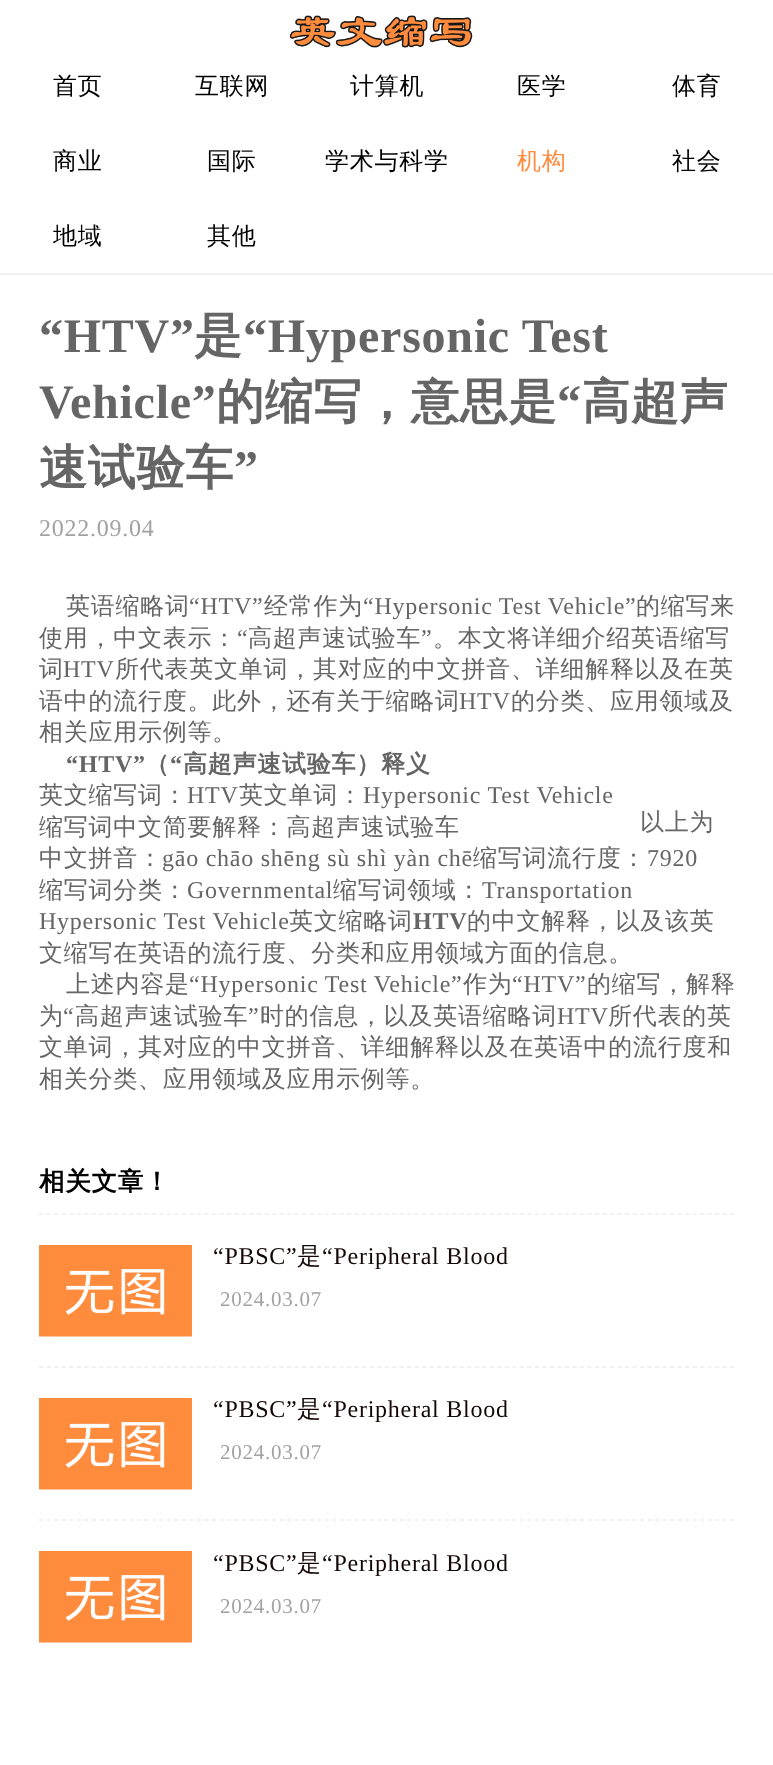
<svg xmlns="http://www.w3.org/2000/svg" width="773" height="1765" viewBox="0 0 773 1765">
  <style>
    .t1 { font: 500 24px WenQuanYi Zen Hei; letter-spacing: 0.75px; fill: #000; }
    .t2 { font: 500 24px WenQuanYi Zen Hei; letter-spacing: 0.75px; fill: #ff8b3d; }
    .t3 { font: bold 48px Liberation Serif; letter-spacing: 0.75px; fill: #656565; }
    .t4 { font: bold 48px WenQuanYi Zen Hei; letter-spacing: 0.75px; fill: #656565; }
    .t5 { font: 24px Liberation Serif; letter-spacing: 0.75px; fill: #a2a2a2; }
    .t6 { font: 500 24px WenQuanYi Zen Hei; letter-spacing: 0.75px; fill: #656565; }
    .t7 { font: 24px Liberation Serif; letter-spacing: 0.75px; fill: #656565; }
    .t8 { font: bold 24px Liberation Serif; letter-spacing: 0.75px; fill: #656565; }
    .t9 { font: bold 24px WenQuanYi Zen Hei; letter-spacing: 0.75px; fill: #656565; }
    .t10 { font: bold 25.5px WenQuanYi Zen Hei; letter-spacing: 0.75px; fill: #000; }
    .t11 { font: 24px Liberation Serif; letter-spacing: 0.75px; fill: #150707; }
    .t12 { font: 500 24px WenQuanYi Zen Hei; letter-spacing: 0.75px; fill: #150707; }
    .t13 { font: 21px Liberation Serif; letter-spacing: 0.75px; fill: #a2a2a2; }
  </style>
  <rect width="100%" height="100%" fill="#fff"/>
  <rect x="0" y="273" width="773" height="2" fill="#f1f1f1"/>
  <image x="289" y="15" width="184" height="33" href="images/1.png"/>
  <text x="53" y="94" class="t1">首页</text>
  <text x="195" y="94" class="t1">互联网</text>
  <text x="350" y="94" class="t1">计算机</text>
  <text x="517" y="94" class="t1">医学</text>
  <text x="672" y="94" class="t1">体育</text>
  <text x="53" y="169" class="t1">商业</text>
  <text x="207" y="169" class="t1">国际</text>
  <text x="325" y="169" class="t1">学术与科学</text>
  <text x="517" y="169" class="t2">机构</text>
  <text x="672" y="169" class="t1">社会</text>
  <text x="53" y="244" class="t1">地域</text>
  <text x="207" y="244" class="t1">其他</text>
  <text x="39" y="352" class="t3">“HTV”</text>
  <text x="194" y="352" class="t4">是</text>
  <text x="243" y="352" class="t3">“Hypersonic Test</text>
  <text x="39" y="418" class="t3">Vehicle”</text>
  <text x="216" y="418" class="t4">的缩写，意思是</text>
  <text x="557" y="418" class="t3">“</text>
  <text x="582" y="418" class="t4">高超声</text>
  <text x="39" y="484" class="t4">速试验车</text>
  <text x="234" y="484" class="t3">”</text>
  <text x="39" y="536" class="t5">2022.09.04</text>
  <text x="66" y="614" class="t6">英语缩略词</text>
  <text x="189" y="614" class="t7">“HTV”</text>
  <text x="264" y="614" class="t6">经常作为</text>
  <text x="363" y="614" class="t7">“Hypersonic Test Vehicle”</text>
  <text x="636" y="614" class="t6">的缩写来</text>
  <text x="39" y="646" class="t6">使用，中文表示：</text>
  <text x="237" y="646" class="t7">“</text>
  <text x="248" y="646" class="t6">高超声速试验车</text>
  <text x="421" y="646" class="t7">”</text>
  <text x="433" y="646" class="t6">。本文将详细介绍英语缩写</text>
  <text x="39" y="677" class="t6">词</text>
  <text x="63" y="677" class="t7">HTV</text>
  <text x="115" y="677" class="t6">所代表英文单词，其对应的中文拼音、详细解释以及在英</text>
  <text x="39" y="709" class="t6">语中的流行度。此外，还有关于缩略词</text>
  <text x="459" y="709" class="t7">HTV</text>
  <text x="511" y="709" class="t6">的分类、应用领域及</text>
  <text x="39" y="740" class="t6">相关应用示例等。</text>
  <text x="66" y="772" class="t8">“HTV”</text>
  <text x="145" y="772" class="t9">（</text>
  <text x="170" y="772" class="t8">“</text>
  <text x="183" y="772" class="t9">高超声速试验车）释义</text>
  <text x="39" y="803" class="t6">英文缩写词：</text>
  <text x="187" y="803" class="t7">HTV</text>
  <text x="239" y="803" class="t6">英文单词：</text>
  <text x="363" y="803" class="t7">Hypersonic Test Vehicle</text>
  <text x="39" y="835" class="t6">缩写词中文简要解释：高超声速试验车</text>
  <text x="39" y="866" class="t6">中文拼音：</text>
  <text x="162" y="866" class="t7">gāo chāo shēng sù shì yàn chē</text>
  <text x="473" y="866" class="t6">缩写词流行度：</text>
  <text x="647" y="866" class="t7">7920</text>
  <text x="39" y="898" class="t6">缩写词分类：</text>
  <text x="187" y="898" class="t7">Governmental</text>
  <text x="333" y="898" class="t6">缩写词领域：</text>
  <text x="482" y="898" class="t7">Transportation</text>
  <text x="640" y="830" class="t6">以上为</text>
  <text x="39" y="929" class="t7">Hypersonic Test Vehicle</text>
  <text x="289" y="929" class="t6">英文缩略词</text>
  <text x="413" y="929" class="t8">HTV</text>
  <text x="467" y="929" class="t6">的中文解释，以及该英</text>
  <text x="39" y="961" class="t6">文缩写在英语的流行度、分类和应用领域方面的信息。</text>
  <text x="66" y="992" class="t6">上述内容是</text>
  <text x="189" y="992" class="t7">“Hypersonic Test Vehicle”</text>
  <text x="463" y="992" class="t6">作为</text>
  <text x="512" y="992" class="t7">“HTV”</text>
  <text x="587" y="992" class="t6">的缩写，解释</text>
  <text x="39" y="1024" class="t6">为</text>
  <text x="63" y="1024" class="t7">“</text>
  <text x="75" y="1024" class="t6">高超声速试验车</text>
  <text x="248" y="1024" class="t7">”</text>
  <text x="260" y="1024" class="t6">时的信息，以及英语缩略词</text>
  <text x="557" y="1024" class="t7">HTV</text>
  <text x="608" y="1024" class="t6">所代表的英</text>
  <text x="39" y="1055" class="t6">文单词，其对应的中文拼音、详细解释以及在英语中的流行度和</text>
  <text x="39" y="1087" class="t6">相关分类、应用领域及应用示例等。</text>
  <text x="39" y="1190" class="t10">相关文章！</text>
  <path d="M39 1214H735" fill="none" stroke="#ededed" stroke-width="1.5" stroke-dasharray="4.5 3.01"/>
  <image x="39" y="1245" width="153" height="92" href="images/2.png"/>
  <text x="213" y="1264" class="t11">“PBSC”</text>
  <text x="297" y="1264" class="t12">是</text>
  <text x="322" y="1264" class="t11">“Peripheral Blood</text>
  <text x="220" y="1306" class="t13">2024.03.07</text>
  <path d="M39 1367H735" fill="none" stroke="#ededed" stroke-width="1.5" stroke-dasharray="4.5 3.01"/>
  <image x="39" y="1398" width="153" height="92" href="images/2.png"/>
  <text x="213" y="1417" class="t11">“PBSC”</text>
  <text x="297" y="1417" class="t12">是</text>
  <text x="322" y="1417" class="t11">“Peripheral Blood</text>
  <text x="220" y="1459" class="t13">2024.03.07</text>
  <path d="M39 1520H735" fill="none" stroke="#ededed" stroke-width="1.5" stroke-dasharray="4.5 3.01"/>
  <image x="39" y="1551" width="153" height="92" href="images/3.png"/>
  <text x="213" y="1571" class="t11">“PBSC”</text>
  <text x="297" y="1571" class="t12">是</text>
  <text x="322" y="1571" class="t11">“Peripheral Blood</text>
  <text x="220" y="1613" class="t13">2024.03.07</text>
</svg>
